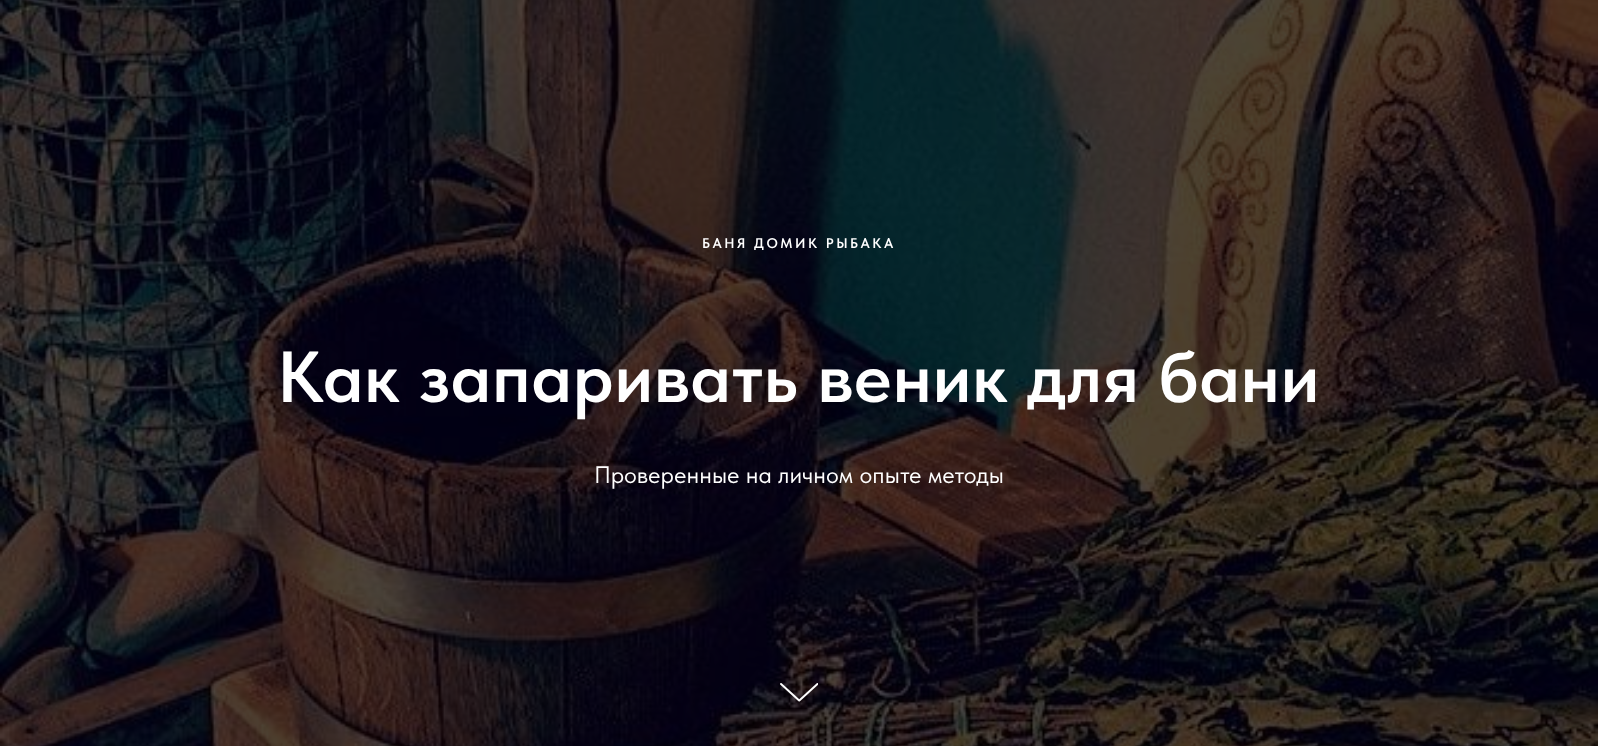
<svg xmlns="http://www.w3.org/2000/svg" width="1598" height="746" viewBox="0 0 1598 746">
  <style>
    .t1 { font: 600 14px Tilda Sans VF; letter-spacing: 2.5px; fill: #fff; }
    .t2 { font: 600 72px Tilda Sans VF; letter-spacing: 0.5px; fill: #fff; }
    .t3 { font: 24px Tilda Sans VF; fill: #fff; }
  </style>
  <rect width="100%" height="100%" fill="#fff"/>
  <image x="0" y="0" width="1598" height="746" href="images/1.png"/>
  <text x="702" y="248" class="t1">БАНЯ ДОМИК РЫБАКА</text>
  <text x="277" y="402" class="t2">Как запаривать веник для бани</text>
  <text x="594" y="483" class="t3">Проверенные на личном опыте методы</text>
  <image x="780" y="683" width="38" height="19" href="images/2.png"/>
</svg>
